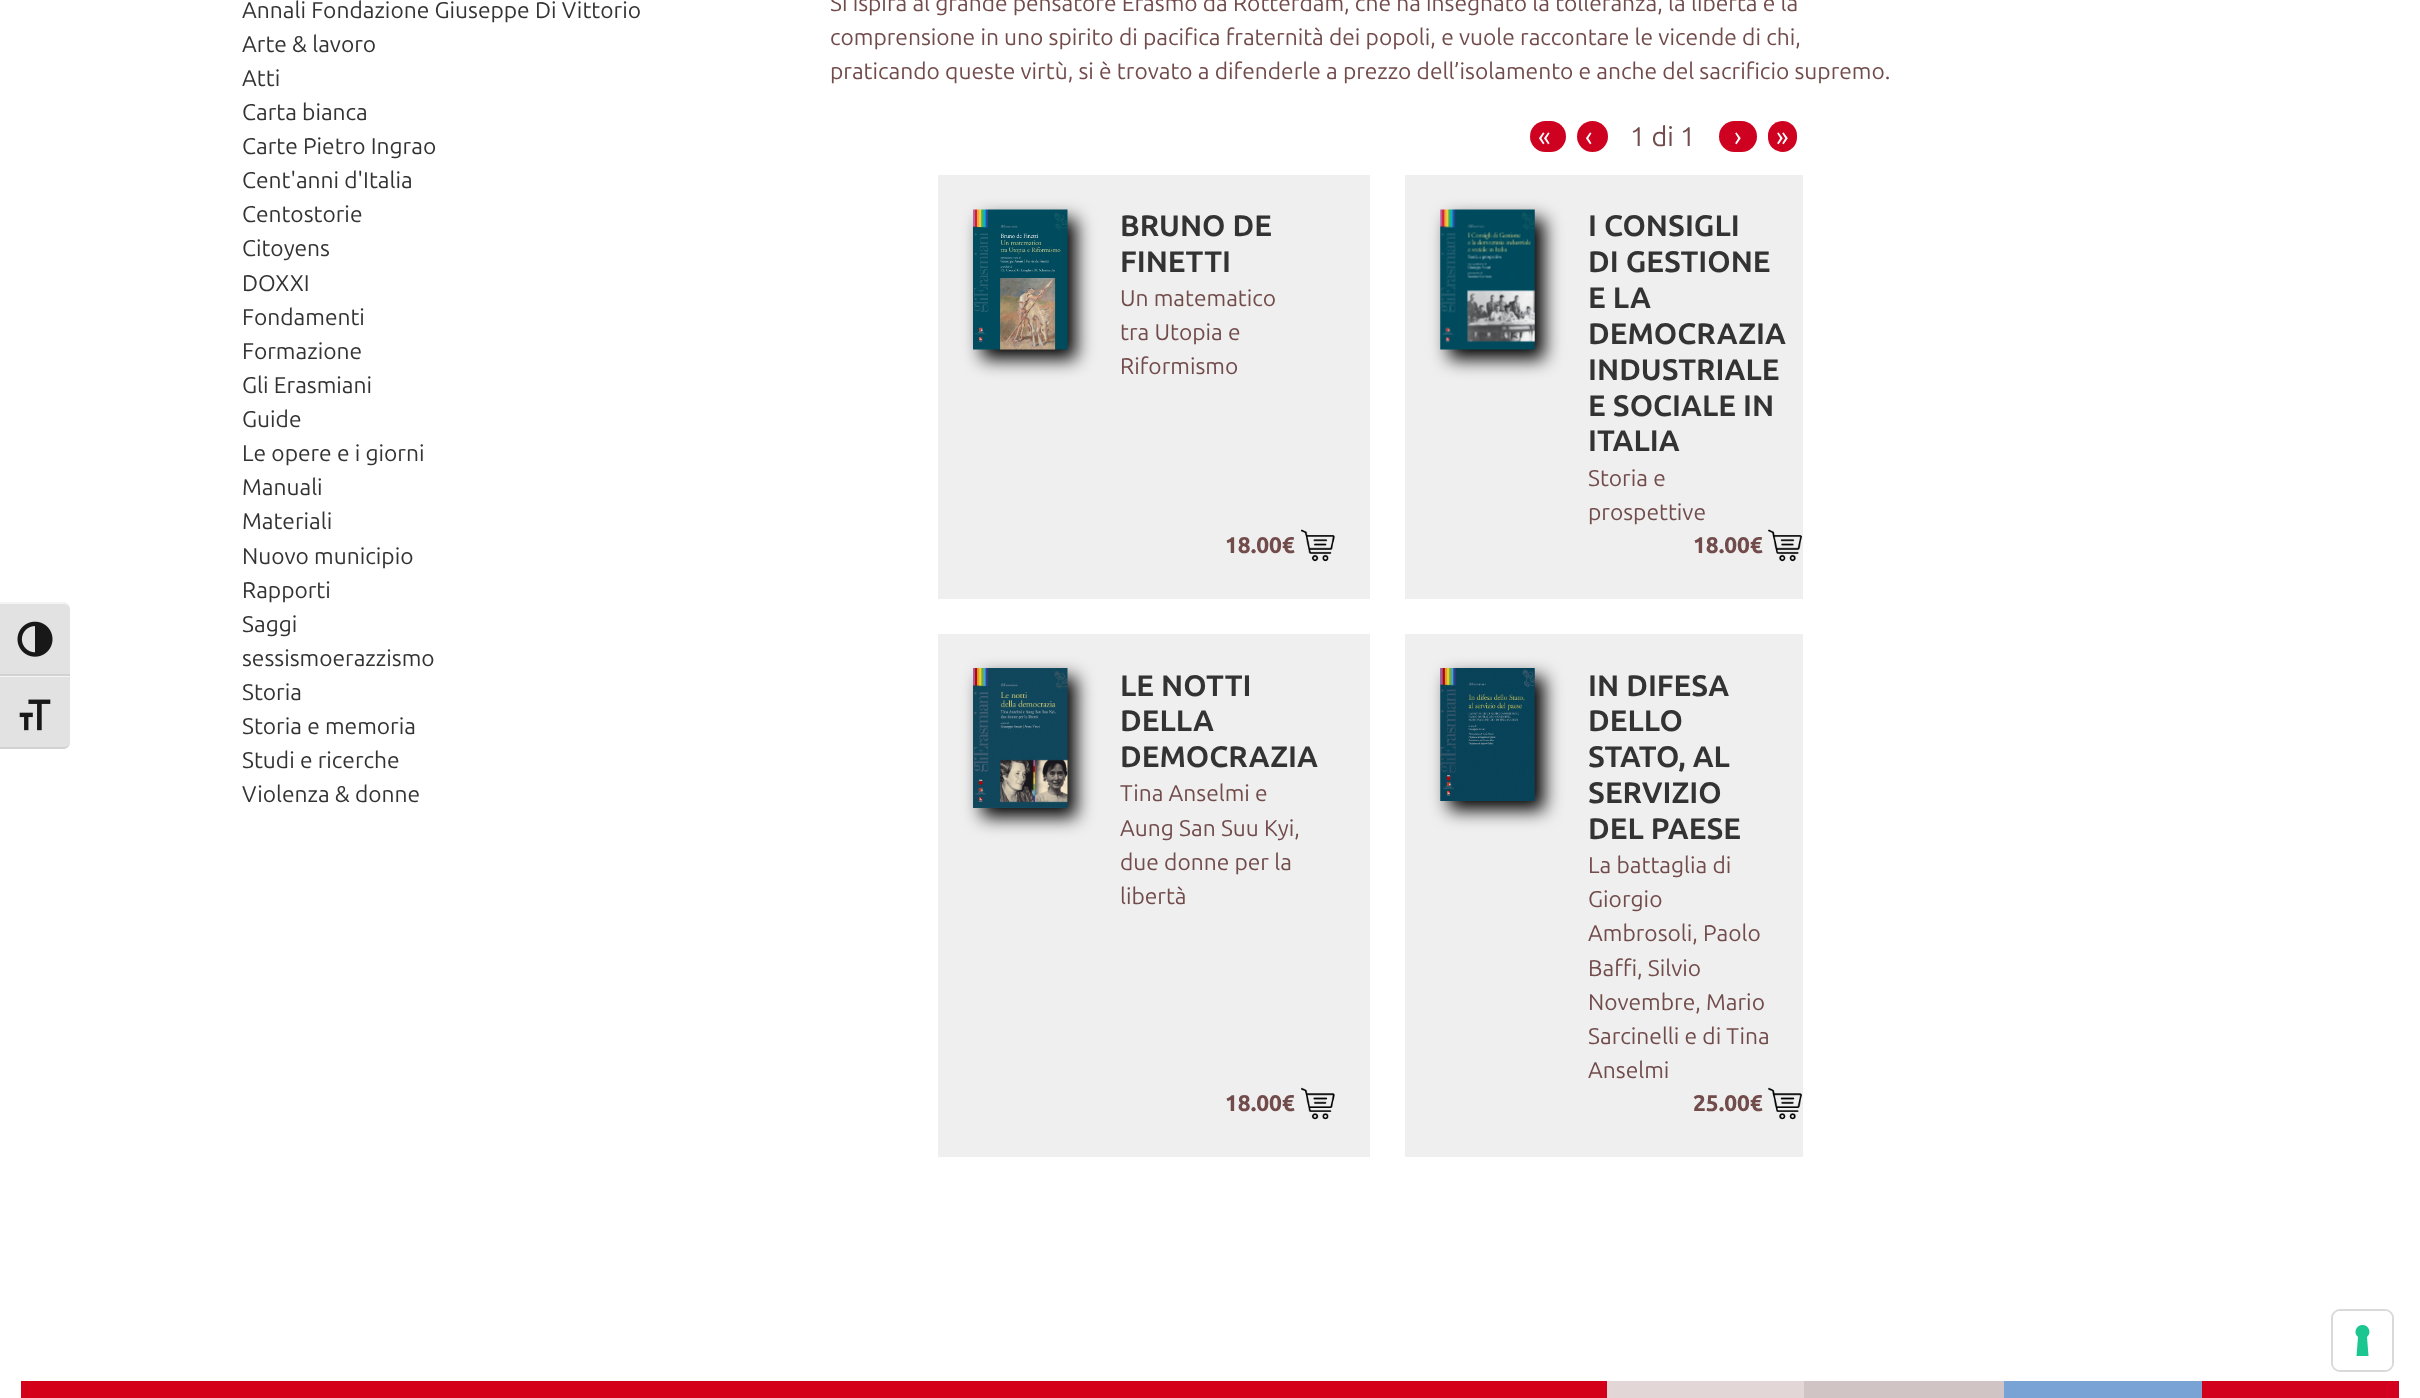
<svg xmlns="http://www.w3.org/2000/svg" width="2420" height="1398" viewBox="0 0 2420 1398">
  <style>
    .t1 { font: 22.75px Ubuntu; fill: #333; }
    .t2 { font: 22.75px Ubuntu; fill: #724b4b; }
    .t3 { font: 27px Ubuntu; fill: #fff; }
    .t4 { font: 27px Ubuntu; fill: #724b4b; }
    .t5 { font: bold 29.75px Ubuntu; fill: #333; }
    .t6 { font: 800 22.75px Ubuntu; fill: #724b4b; }
  </style>
  <rect width="100%" height="100%" fill="#fff"/>
  <path d="M0 602H63C67 602 70 605 70 609V676H0Z" fill="#e2e2e2"/>
  <path d="M0 602V604H63C67 604 70 606 70 609C70 605 67 602 63 602Z" fill="#f5f5f5"/>
  <rect x="0" y="674" width="70" height="2" fill="#d2d2d2"/>
  <image x="17" y="621" width="36" height="36" href="images/1.png"/>
  <path d="M0 676H70V742C70 746 67 749 63 749H0Z" fill="#e2e2e2"/>
  <rect x="0" y="676" width="70" height="1" fill="#f5f5f5"/>
  <path d="M0 747V749H63C67 749 70 746 70 742C70 745 67 747 63 747Z" fill="#d2d2d2"/>
  <image x="19" y="699" width="32" height="32" href="images/2.png"/>
  <text x="242" y="18" class="t1">Annali Fondazione Giuseppe Di Vittorio</text>
  <text x="242" y="52" class="t1">Arte &amp; lavoro</text>
  <text x="242" y="86" class="t1">Atti</text>
  <text x="242" y="120" class="t1">Carta bianca</text>
  <text x="242" y="154" class="t1">Carte Pietro Ingrao</text>
  <text x="242" y="188" class="t1">Cent'anni d'Italia</text>
  <text x="242" y="222" class="t1">Centostorie</text>
  <text x="242" y="256" class="t1">Citoyens</text>
  <text x="242" y="291" class="t1">DOXXI</text>
  <text x="242" y="325" class="t1">Fondamenti</text>
  <text x="242" y="359" class="t1">Formazione</text>
  <text x="242" y="393" class="t1">Gli Erasmiani</text>
  <text x="242" y="427" class="t1">Guide</text>
  <text x="242" y="461" class="t1">Le opere e i giorni</text>
  <text x="242" y="495" class="t1">Manuali</text>
  <text x="242" y="529" class="t1">Materiali</text>
  <text x="242" y="564" class="t1">Nuovo municipio</text>
  <text x="242" y="598" class="t1">Rapporti</text>
  <text x="242" y="632" class="t1">Saggi</text>
  <text x="242" y="666" class="t1">sessismoerazzismo</text>
  <text x="242" y="700" class="t1">Storia</text>
  <text x="242" y="734" class="t1">Storia e memoria</text>
  <text x="242" y="768" class="t1">Studi e ricerche</text>
  <text x="242" y="802" class="t1">Violenza &amp; donne</text>
  <text x="830" y="11" class="t2">Si ispira al grande pensatore Erasmo da Rotterdam, che ha insegnato la tolleranza, la libertà e la</text>
  <text x="830" y="45" class="t2">comprensione in uno spirito di pacifica fraternità dei popoli, e vuole raccontare le vicende di chi,</text>
  <text x="830" y="79" class="t2">praticando queste virtù, si è trovato a difenderle a prezzo dell’isolamento e anche del sacrificio supremo.</text>
  <rect x="1530" y="121" width="36" height="31" rx="15.5" fill="#cf0120"/>
  <text x="1538" y="146" class="t3">«</text>
  <circle cx="1592.5" cy="136.5" r="15.5" fill="#cf0120"/>
  <text x="1585" y="146" class="t3">‹</text>
  <text x="1630" y="146" class="t4">1 di 1</text>
  <rect x="1719" y="121" width="38" height="31" rx="15.5" fill="#cf0120"/>
  <text x="1734" y="146" class="t3">›</text>
  <rect x="1768" y="121" width="29" height="31" rx="14.5" fill="#cf0120"/>
  <text x="1776" y="146" class="t3">»</text>
  <rect x="938" y="175" width="432" height="424" fill="#efefef"/>
  <rect x="982" y="219" width="94" height="140" fill="#000" filter="blur(9px)"/>
  <image x="973" y="209" width="95" height="141" href="images/3.png"/>
  <text x="1120" y="236" class="t5">BRUNO DE</text>
  <text x="1120" y="272" class="t5">FINETTI</text>
  <text x="1120" y="306" class="t2">Un matematico</text>
  <text x="1120" y="340" class="t2">tra Utopia e</text>
  <text x="1120" y="374" class="t2">Riformismo</text>
  <text x="1225" y="553" class="t6">18.00€</text>
  <image x="1301" y="529" width="34" height="33" href="images/4.png"/>
  <rect x="1405" y="175" width="398" height="424" fill="#efefef"/>
  <rect x="1449" y="219" width="95" height="140" fill="#000" filter="blur(9px)"/>
  <image x="1440" y="209" width="95" height="141" href="images/5.png"/>
  <text x="1588" y="236" class="t5">I CONSIGLI</text>
  <text x="1588" y="272" class="t5">DI GESTIONE</text>
  <text x="1588" y="308" class="t5">E LA</text>
  <text x="1588" y="344" class="t5">DEMOCRAZIA</text>
  <text x="1588" y="380" class="t5">INDUSTRIALE</text>
  <text x="1588" y="416" class="t5">E SOCIALE IN</text>
  <text x="1588" y="451" class="t5">ITALIA</text>
  <text x="1588" y="486" class="t2">Storia e</text>
  <text x="1588" y="520" class="t2">prospettive</text>
  <text x="1693" y="553" class="t6">18.00€</text>
  <image x="1768" y="529" width="34" height="33" href="images/6.png"/>
  <rect x="938" y="634" width="432" height="523" fill="#efefef"/>
  <rect x="982" y="677" width="94" height="140" fill="#000" filter="blur(9px)"/>
  <image x="973" y="668" width="95" height="140" href="images/7.png"/>
  <text x="1120" y="696" class="t5">LE NOTTI</text>
  <text x="1120" y="731" class="t5">DELLA</text>
  <text x="1120" y="767" class="t5">DEMOCRAZIA</text>
  <text x="1120" y="801" class="t2">Tina Anselmi e</text>
  <text x="1120" y="836" class="t2">Aung San Suu Kyi,</text>
  <text x="1120" y="870" class="t2">due donne per la</text>
  <text x="1120" y="904" class="t2">libertà</text>
  <text x="1225" y="1111" class="t6">18.00€</text>
  <image x="1301" y="1087" width="34" height="33" href="images/8.png"/>
  <rect x="1405" y="634" width="398" height="523" fill="#efefef"/>
  <rect x="1449" y="677" width="95" height="133" fill="#000" filter="blur(9px)"/>
  <image x="1440" y="668" width="95" height="133" href="images/9.png"/>
  <text x="1588" y="696" class="t5">IN DIFESA</text>
  <text x="1588" y="731" class="t5">DELLO</text>
  <text x="1588" y="767" class="t5">STATO, AL</text>
  <text x="1588" y="803" class="t5">SERVIZIO</text>
  <text x="1588" y="839" class="t5">DEL PAESE</text>
  <text x="1588" y="873" class="t2">La battaglia di</text>
  <text x="1588" y="907" class="t2">Giorgio</text>
  <text x="1588" y="941" class="t2">Ambrosoli, Paolo</text>
  <text x="1588" y="976" class="t2">Baffi, Silvio</text>
  <text x="1588" y="1010" class="t2">Novembre, Mario</text>
  <text x="1588" y="1044" class="t2">Sarcinelli e di Tina</text>
  <text x="1588" y="1078" class="t2">Anselmi</text>
  <text x="1693" y="1111" class="t6">25.00€</text>
  <image x="1768" y="1087" width="34" height="33" href="images/10.png"/>
  <rect x="21" y="1381" width="1586" height="17" fill="#d4001a"/>
  <rect x="1607" y="1381" width="197" height="17" fill="#e2d6d6"/>
  <rect x="1804" y="1381" width="200" height="17" fill="#d0c5c4"/>
  <rect x="2004" y="1381" width="198" height="17" fill="#79a3d4"/>
  <rect x="2202" y="1381" width="197" height="17" fill="#d2001d"/>
  <rect x="2332" y="1310" width="61" height="61" rx="8" fill="none" stroke="#d9d9d9" stroke-width="2"/>
  <rect x="2333" y="1311" width="59" height="59" rx="7" fill="#fff"/>
  <path d="M2362.5 1325C2369 1325 2372 1333 2367 1337L2368.5 1356H2356.5L2358 1337C2353 1333 2356 1325 2362.5 1325Z" fill="#1cc691" fill-rule="evenodd"/>
</svg>
